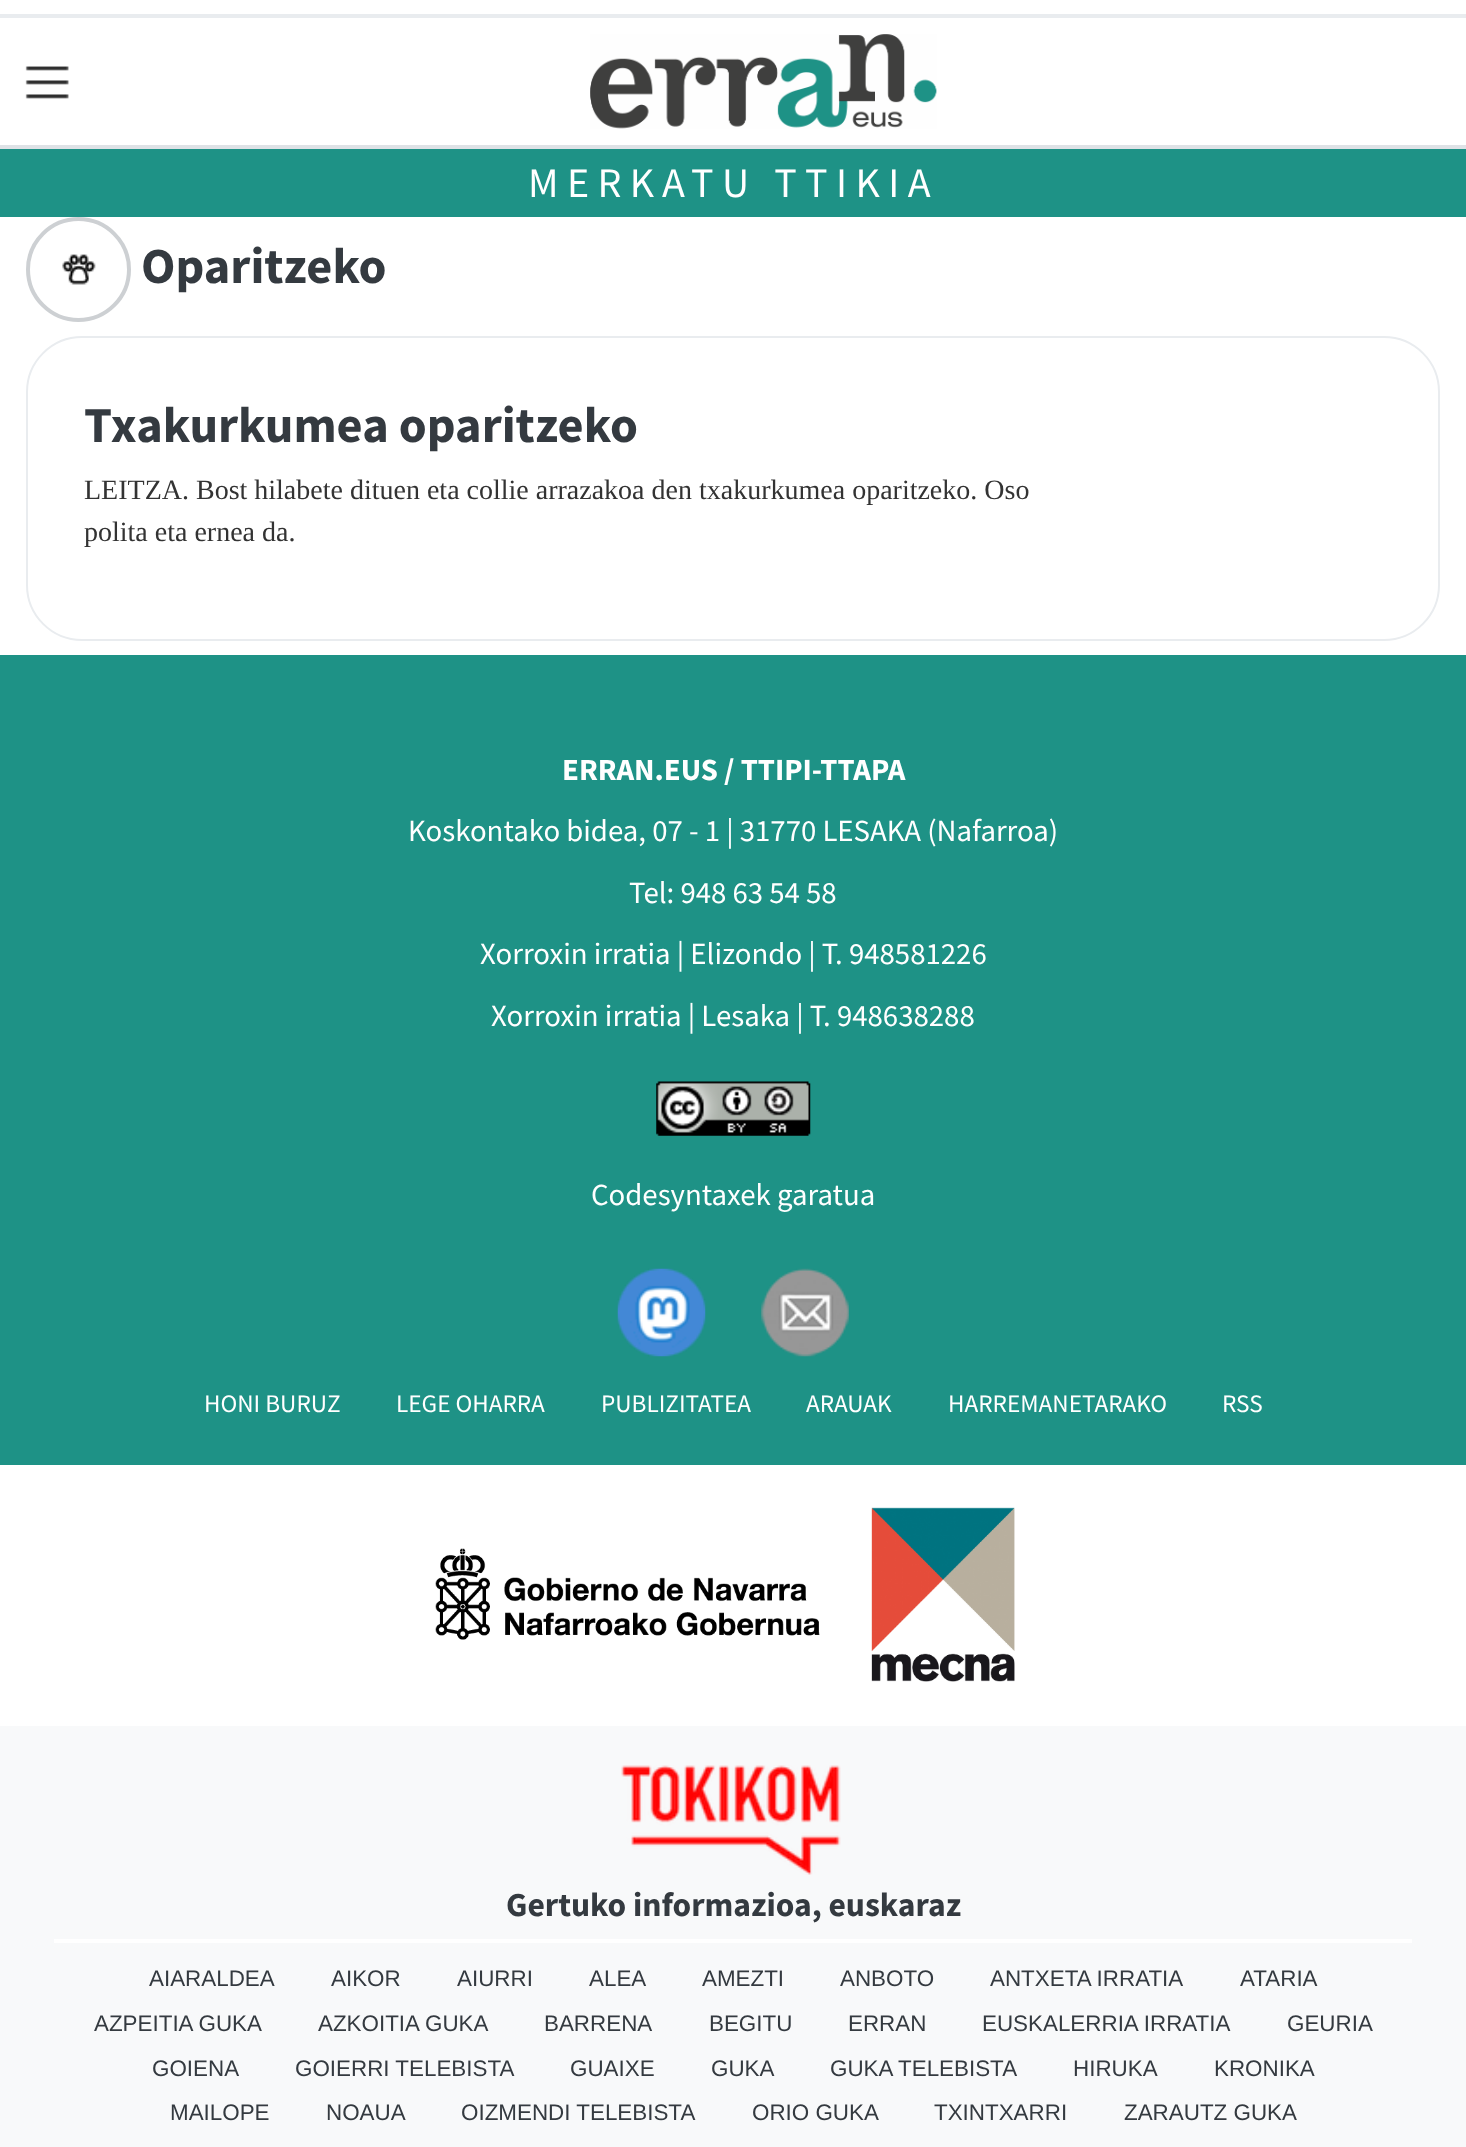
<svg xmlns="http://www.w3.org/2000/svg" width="1466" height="2147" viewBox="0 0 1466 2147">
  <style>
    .t1 { font: 42px Source Sans Pro; letter-spacing: 8.4px; fill: #fff; }
    .t2 { font: bold 50.4px Source Sans Pro; fill: #343a40; }
    .t3 { font: 28px Liberation Serif; fill: #333; }
    .t4 { font: bold 30.8px Source Sans Pro; fill: #fff; }
    .t5 { font: 30.8px Source Sans Pro; fill: #fff; }
    .t6 { font: 25.25px Source Sans Pro; fill: #fff; }
    .t7 { font: bold 33.6px Source Sans Pro; fill: #343a40; }
    .t8 { font: 22.4px Liberation Sans; fill: #343a40; }
  </style>
  <rect width="100%" height="100%" fill="#fff"/>
  <rect x="0" y="14" width="1466" height="4" fill="#e9ecef"/>
  <image x="25" y="66" width="44" height="33" href="images/1.png"/>
  <image x="590" y="34" width="347" height="95" href="images/2.png"/>
  <rect x="0" y="145" width="1466" height="4" fill="#dee2e6"/>
  <rect x="0" y="149" width="1466" height="68" fill="#1e9286"/>
  <text x="528" y="197" class="t1">MERKATU TTIKIA</text>
  <circle cx="78.5" cy="269.5" r="50.5" fill="none" stroke="#cdd0d3" stroke-width="4"/>
  <text x="141" y="283" class="t2">Oparitzeko</text>
  <image x="62" y="254" width="34" height="31" href="images/3.png"/>
  <rect x="27" y="337" width="1412" height="303" rx="55" fill="none" stroke="#e9ecef" stroke-width="2"/>
  <text x="84" y="442" class="t2">Txakurkumea oparitzeko</text>
  <text x="84" y="499" class="t3">LEITZA. Bost hilabete dituen eta collie arrazakoa den txakurkumea oparitzeko. Oso</text>
  <text x="84" y="541" class="t3">polita eta ernea da.</text>
  <rect x="0" y="655" width="1466" height="810" fill="#1e9286"/>
  <text x="562" y="780" class="t4">ERRAN.EUS / TTIPI-TTAPA</text>
  <text x="408" y="841" class="t5">Koskontako bidea, 07 - 1 | 31770 LESAKA (Nafarroa)</text>
  <text x="629" y="903" class="t5">Tel: 948 63 54 58</text>
  <text x="480" y="964" class="t5">Xorroxin irratia | Elizondo | T. 948581226</text>
  <text x="491" y="1026" class="t5">Xorroxin irratia | Lesaka | T. 948638288</text>
  <image x="656" y="1081" width="155" height="55" href="images/4.png"/>
  <text x="591" y="1205" class="t5">Codesyntaxek garatua</text>
  <image x="617" y="1268" width="89" height="89" href="images/5.png"/>
  <image x="761" y="1268" width="88" height="89" href="images/6.png"/>
  <text x="204" y="1412" class="t6">HONI BURUZ</text>
  <text x="396" y="1412" class="t6">LEGE OHARRA</text>
  <text x="601" y="1412" class="t6">PUBLIZITATEA</text>
  <text x="806" y="1412" class="t6">ARAUAK</text>
  <text x="948" y="1412" class="t6">HARREMANETARAKO</text>
  <text x="1222" y="1412" class="t6">RSS</text>
  <image x="435" y="1548" width="385" height="92" href="images/7.png"/>
  <image x="871" y="1507" width="144" height="175" href="images/8.png"/>
  <rect x="0" y="1726" width="1466" height="421" fill="#f8f9fa"/>
  <image x="621" y="1765" width="220" height="110" href="images/9.png"/>
  <text x="506" y="1916" class="t7">Gertuko informazioa, euskaraz</text>
  <rect x="54" y="1939" width="1358" height="4" fill="#fff"/>
  <text x="149" y="1986" class="t8">AIARALDEA</text>
  <text x="331" y="1986" class="t8">AIKOR</text>
  <text x="457" y="1986" class="t8">AIURRI</text>
  <text x="589" y="1986" class="t8">ALEA</text>
  <text x="702" y="1986" class="t8">AMEZTI</text>
  <text x="840" y="1986" class="t8">ANBOTO</text>
  <text x="990" y="1986" class="t8">ANTXETA IRRATIA</text>
  <text x="1240" y="1986" class="t8">ATARIA</text>
  <text x="94" y="2031" class="t8">AZPEITIA GUKA</text>
  <text x="318" y="2031" class="t8">AZKOITIA GUKA</text>
  <text x="544" y="2031" class="t8">BARRENA</text>
  <text x="709" y="2031" class="t8">BEGITU</text>
  <text x="848" y="2031" class="t8">ERRAN</text>
  <text x="982" y="2031" class="t8">EUSKALERRIA IRRATIA</text>
  <text x="1287" y="2031" class="t8">GEURIA</text>
  <text x="152" y="2076" class="t8">GOIENA</text>
  <text x="295" y="2076" class="t8">GOIERRI TELEBISTA</text>
  <text x="570" y="2076" class="t8">GUAIXE</text>
  <text x="711" y="2076" class="t8">GUKA</text>
  <text x="830" y="2076" class="t8">GUKA TELEBISTA</text>
  <text x="1073" y="2076" class="t8">HIRUKA</text>
  <text x="1214" y="2076" class="t8">KRONIKA</text>
  <text x="170" y="2120" class="t8">MAILOPE</text>
  <text x="326" y="2120" class="t8">NOAUA</text>
  <text x="461" y="2120" class="t8">OIZMENDI TELEBISTA</text>
  <text x="752" y="2120" class="t8">ORIO GUKA</text>
  <text x="934" y="2120" class="t8">TXINTXARRI</text>
  <text x="1124" y="2120" class="t8">ZARAUTZ GUKA</text>
</svg>
